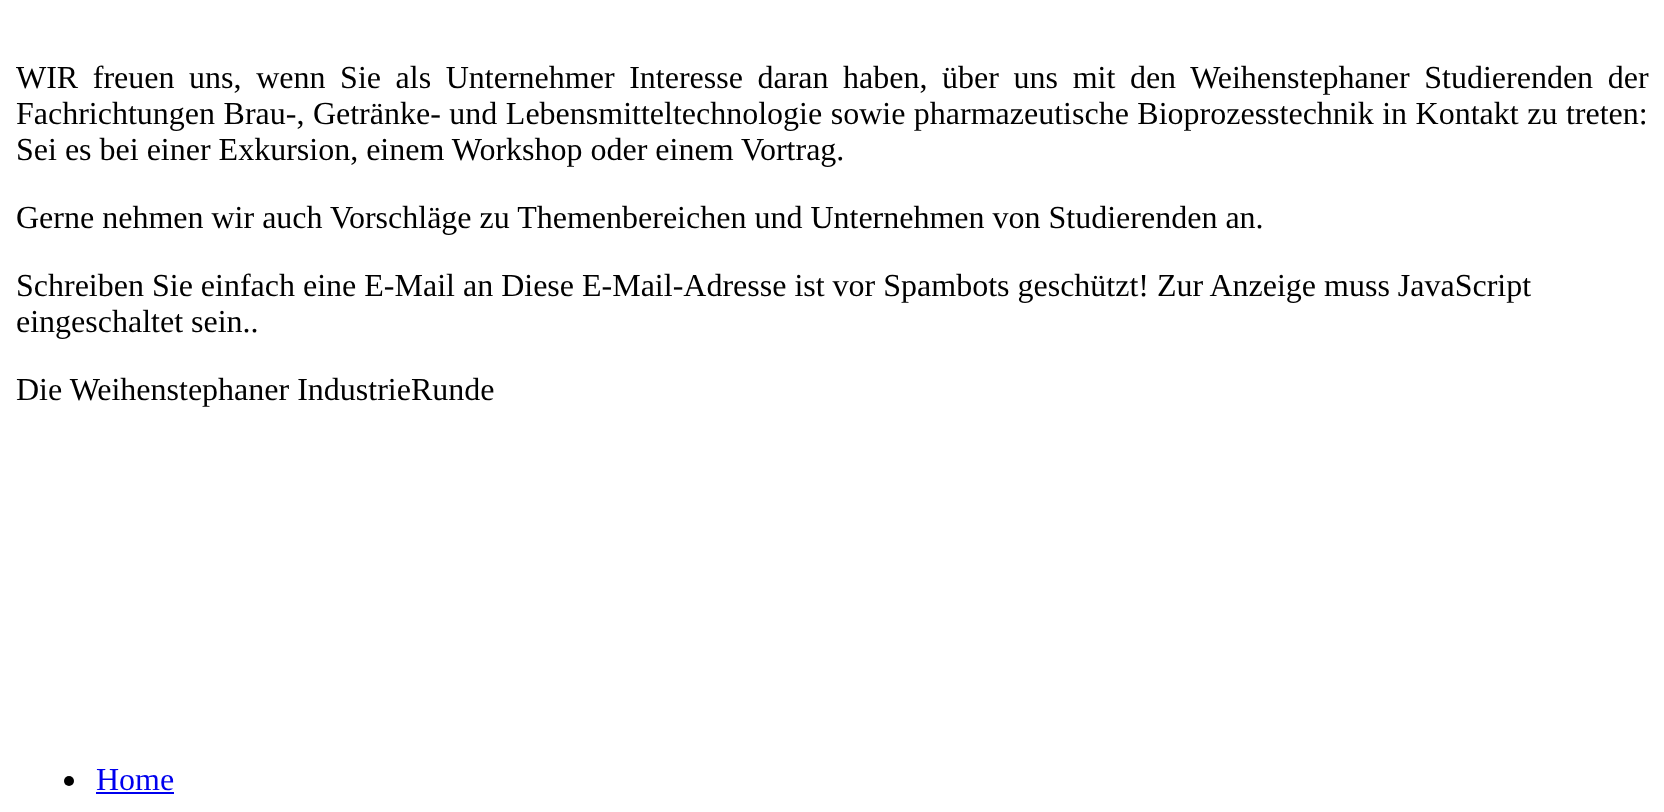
<svg xmlns="http://www.w3.org/2000/svg" width="1664" height="812" viewBox="0 0 1664 812">
  <style>
    .t1 { font: 32px Liberation Serif; fill: #000; }
    .t2 { font: 32px Liberation Serif; fill: #00e; }
  </style>
  <rect width="100%" height="100%" fill="#fff"/>
  <text x="16" y="88" word-spacing="6.6" class="t1">WIR freuen uns, wenn Sie als Unternehmer Interesse daran haben, über uns mit den Weihenstephaner Studierenden der</text>
  <text x="16" y="124" word-spacing="0.5" class="t1">Fachrichtungen Brau-, Getränke- und Lebensmitteltechnologie sowie pharmazeutische Bioprozesstechnik in Kontakt zu treten:</text>
  <text x="16" y="160" class="t1">Sei es bei einer Exkursion, einem Workshop oder einem Vortrag.</text>
  <text x="16" y="228" class="t1">Gerne nehmen wir auch Vorschläge zu Themenbereichen und Unternehmen von Studierenden an.</text>
  <text x="16" y="296" class="t1">Schreiben Sie einfach eine E-Mail an Diese E-Mail-Adresse ist vor Spambots geschützt! Zur Anzeige muss JavaScript</text>
  <text x="16" y="332" class="t1">eingeschaltet sein..</text>
  <text x="16" y="400" class="t1">Die Weihenstephaner IndustrieRunde</text>
  <circle cx="69" cy="781" r="5" fill="#000"/>
  <text x="96" y="790" class="t2">Home</text>
  <rect x="96" y="792" width="78" height="2" fill="#00e"/>
</svg>
